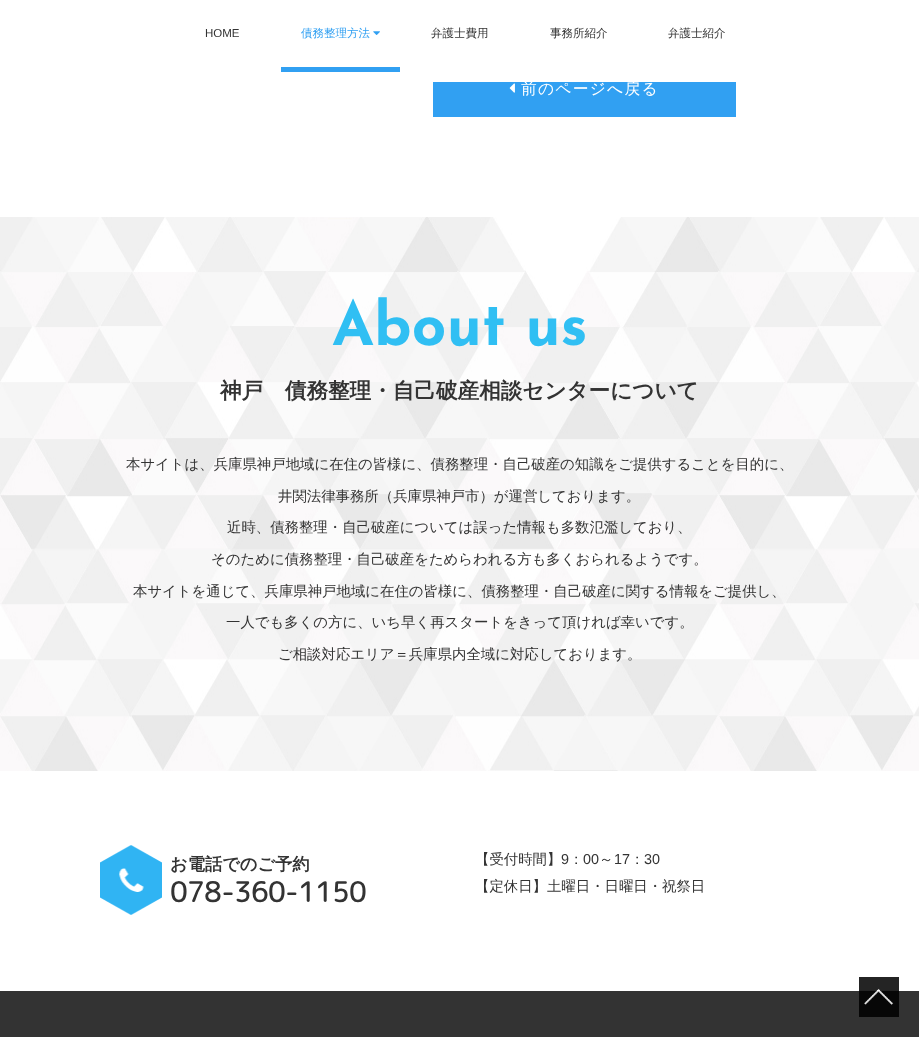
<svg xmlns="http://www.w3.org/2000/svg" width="919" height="1037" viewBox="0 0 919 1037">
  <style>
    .t1 { font: 11.5px Liberation Sans; fill: #333; }
    .t2 { font: 500 11.5px WenQuanYi Zen Hei; fill: #31a0f2; }
    .t3 { font: 500 11.5px WenQuanYi Zen Hei; fill: #333; }
    .t4 { font: 500 15.75px WenQuanYi Zen Hei; letter-spacing: 1.25px; fill: #fff; }
    .t5 { font: 100 60.5px Josefin Sans; fill: #30bff3; }
    .t6 { font: bold 21.6px WenQuanYi Zen Hei; fill: #333; }
    .t7 { font: 500 14.4px WenQuanYi Zen Hei; fill: #333; }
    .t8 { font: bold 17.25px WenQuanYi Zen Hei; fill: #333; }
    .t9 { font: bold 27.5px 'Rounded Mplus 1c'; fill: #333; }
    .t10 { font: 14.4px Liberation Sans; fill: #333; }
  </style>
  <rect width="100%" height="100%" fill="#fff"/>
  <text x="205" y="37" class="t1">HOME</text>
  <rect x="281" y="67" width="119" height="5" fill="#31a0f2"/>
  <text x="301" y="37" class="t2">債務整理方法</text>
  <image x="373" y="31" width="7" height="4" href="images/1.png"/>
  <text x="431" y="37" class="t3">弁護士費用</text>
  <text x="550" y="37" class="t3">事務所紹介</text>
  <text x="668" y="37" class="t3">弁護士紹介</text>
  <rect x="433" y="82" width="303" height="35" fill="#31a0f2"/>
  <image x="509" y="83" width="6" height="10" href="images/2.png"/>
  <text x="521" y="94" class="t4">前のページへ戻る</text>
  <image x="0" y="217" width="919" height="554" href="images/3.png"/>
  <text x="332" y="345" class="t5">About us</text>
  <text x="220" y="398" class="t6">神戸　債務整理・自己破産相談センターについて</text>
  <text x="126" y="469" class="t7">本サイトは、兵庫県神戸地域に在住の皆様に、債務整理・自己破産の知識をご提供することを目的に、</text>
  <text x="278" y="501" class="t7">井関法律事務所（兵庫県神戸市）が運営しております。</text>
  <text x="227" y="532" class="t7">近時、債務整理・自己破産については誤った情報も多数氾濫しており、</text>
  <text x="211" y="564" class="t7">そのために債務整理・自己破産をためらわれる方も多くおられるようです。</text>
  <text x="133" y="596" class="t7">本サイトを通じて、兵庫県神戸地域に在住の皆様に、債務整理・自己破産に関する情報をご提供し、</text>
  <text x="226" y="627" class="t7">一人でも多くの方に、いち早く再スタートをきって頂ければ幸いです。</text>
  <text x="278" y="659" class="t7">ご相談対応エリア＝兵庫県内全域に対応しております。</text>
  <image x="100" y="845" width="62" height="70" href="images/4.png"/>
  <text x="170" y="870" class="t8">お電話でのご予約</text>
  <text x="170" y="902" class="t9">078-360-1150</text>
  <text x="475" y="864" class="t7">【受付時間】</text>
  <text x="561" y="864" class="t10">9</text>
  <text x="569" y="864" class="t7">：</text>
  <text x="583" y="864" class="t10">00</text>
  <text x="599" y="864" class="t7">～</text>
  <text x="614" y="864" class="t10">17</text>
  <text x="630" y="864" class="t7">：</text>
  <text x="644" y="864" class="t10">30</text>
  <text x="475" y="891" class="t7">【定休日】土曜日・日曜日・祝祭日</text>
  <rect x="0" y="991" width="919" height="46" fill="#333"/>
  <image x="859" y="977" width="40" height="40" href="images/5.png"/>
</svg>
